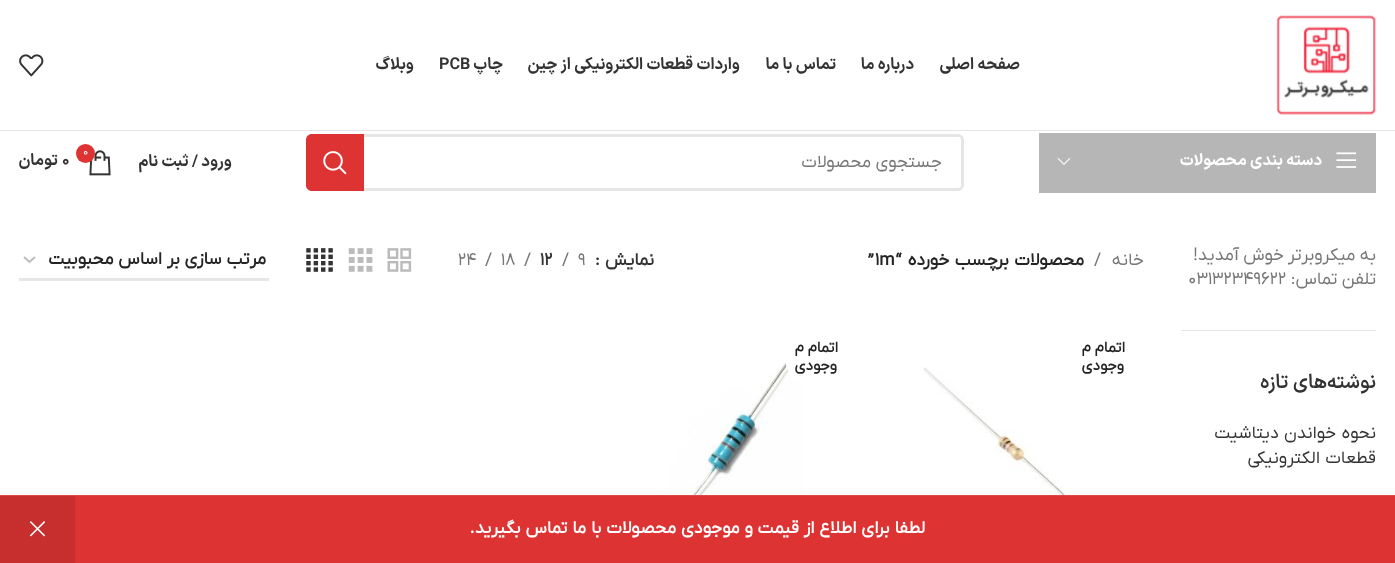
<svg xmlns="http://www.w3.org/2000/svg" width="1395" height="563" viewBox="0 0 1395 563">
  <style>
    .t1 { font: bold 16.25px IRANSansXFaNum; direction: rtl; fill: #333; }
    .t2 { font: bold 16.25px IRANSansXFaNum; fill: #333; }
    .t3 { font: bold 16.25px IRANSansXFaNum; direction: rtl; fill: #fff; }
    .t4 { font: 17.5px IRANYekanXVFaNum; direction: rtl; fill: #767676; }
    .t5 { font: 11px IRANYekanXVFaNum; fill: #fff; }
    .t6 { font: 17.5px IRANYekanXVFaNum; fill: #767676; }
    .t7 { font: 600 20px IRANSansXFaNum; direction: rtl; fill: #333; }
    .t8 { font: 17.5px IRANYekanXVFaNum; direction: rtl; fill: #333; }
    .t9 { font: bold 17.5px IRANYekanXVFaNum; direction: rtl; fill: #242424; }
    .t10 { font: bold 17.5px IRANYekanXVFaNum; fill: #242424; }
    .t11 { font: bold 17.5px IRANYekanXVFaNum; direction: rtl; fill: #333; }
    .t12 { font: bold 17.5px IRANYekanXVFaNum; fill: #333; }
    .t13 { font: bold 15px IRANYekanXVFaNum; direction: rtl; fill: #242424; }
    .t14 { font: bold 17.5px IRANYekanXVFaNum; direction: rtl; fill: #fff; }
  </style>
  <rect width="100%" height="100%" fill="#fff"/>
  <rect x="0" y="130" width="1395" height="1" fill="#e6e6e6"/>
  <image x="1276" y="15" width="101" height="100" href="images/1.png"/>
  <text x="1020" y="69" class="t1">صفحه اصلی</text>
  <text x="914" y="69" class="t1">درباره ما</text>
  <text x="836" y="69" class="t1">تماس با ما</text>
  <text x="740" y="69" class="t1">واردات قطعات الکترونیکی از چین</text>
  <text x="503" y="69" class="t1">چاپ</text>
  <text x="439" y="69" class="t2">PCB</text>
  <text x="414" y="69" class="t1">وبلاگ</text>
  <image x="19" y="54" width="25" height="23" href="images/2.png"/>
  <rect x="1039" y="133" width="337" height="60" fill="#b6b6b6"/>
  <image x="1336" y="152" width="21" height="16" href="images/3.png"/>
  <text x="1322" y="165" class="t3">دسته بندی محصولات</text>
  <image x="1057" y="158" width="14" height="7" href="images/4.png"/>
  <rect x="307.5" y="135.5" width="655" height="54" rx="4.5" fill="none" stroke="#e6e6e6" stroke-width="3"/>
  <text x="942" y="167" class="t4">جستجوی محصولات</text>
  <path d="M312 134H364V191H312C308.5 191 306 188.5 306 185V140C306 136.5 308.5 134 312 134Z" fill="#d33"/>
  <image x="323" y="151" width="24" height="24" href="images/5.png"/>
  <text x="232" y="166" class="t1">ورود / ثبت نام</text>
  <image x="89" y="150" width="22" height="26" href="images/6.png"/>
  <circle cx="85.5" cy="153.5" r="9.5" fill="#d33"/>
  <text x="83" y="155" class="t5">0</text>
  <text x="62" y="165" class="t2">0</text>
  <text x="58" y="165" class="t1">تومان</text>
  <rect x="1181" y="330" width="195" height="1" fill="#e4e4e4"/>
  <text x="1376" y="260" class="t4">به میکروبرتر</text>
  <text x="1284" y="260" class="t4">خوش آمدید!</text>
  <text x="1376" y="284" class="t4">تلفن تماس:</text>
  <text x="1188" y="284" class="t6">03132349622</text>
  <text x="1376" y="388" class="t7">نوشته‌های تازه</text>
  <text x="1376" y="438" word-spacing="1" class="t8">نحوه خواندن دیتاشیت</text>
  <text x="1376" y="463" word-spacing="1" class="t8">قطعات الکترونیکی</text>
  <text x="1144" y="265" class="t4">خانه</text>
  <text x="1094" y="265" class="t6">/</text>
  <text x="1084" y="265" word-spacing="1" class="t9">محصولات برچسب خورده</text>
  <text x="895" y="265" class="t10">“</text>
  <text x="875" y="265" class="t10">1m</text>
  <text x="868" y="265" class="t10">”</text>
  <text x="654" y="265" class="t11">نمایش</text>
  <text x="595" y="265" class="t12">:</text>
  <text x="578" y="265" class="t6">9</text>
  <text x="562" y="265" class="t6">/</text>
  <text x="540" y="265" class="t12">12</text>
  <text x="524" y="265" class="t6">/</text>
  <text x="501" y="265" class="t6">18</text>
  <text x="485" y="265" class="t6">/</text>
  <text x="458" y="265" class="t6">24</text>
  <image x="387" y="248" width="25" height="24" href="images/7.png"/>
  <image x="348" y="248" width="25" height="24" href="images/8.png"/>
  <image x="306" y="248" width="27" height="24" href="images/9.png"/>
  <path d="M24 257L29.5 262L35 257" fill="none" stroke="#bbb" stroke-width="1.8"/>
  <rect x="19" y="278" width="250" height="3" fill="#e6e6e6"/>
  <text x="266" y="264" word-spacing="0.5" class="t9">مرتب سازی بر اساس محبوبیت</text>
  <text x="1125" y="352" class="t13">اتمام م</text>
  <image x="923" y="367" width="191" height="128" href="images/10.png"/>
  <text x="1124" y="370" class="t13">وجودی</text>
  <image x="649" y="345" width="154" height="150" href="images/11.png"/>
  <circle cx="816.5" cy="357.5" r="31.5" fill="#fff"/>
  <text x="838" y="352" class="t13">اتمام م</text>
  <text x="837" y="370" class="t13">وجودی</text>
  <rect x="75" y="496" width="1320" height="67" fill="#d33"/>
  <rect x="0" y="495" width="1395" height="1" fill="#e04747"/>
  <text x="925" y="533" word-spacing="0.5" class="t14">لطفا برای اطلاع از قیمت و موجودی محصولات با ما تماس بگیرید.</text>
  <rect x="0" y="496" width="75" height="67" fill="#c72e2e"/>
  <image x="29" y="521" width="17" height="16" href="images/12.png"/>
</svg>
